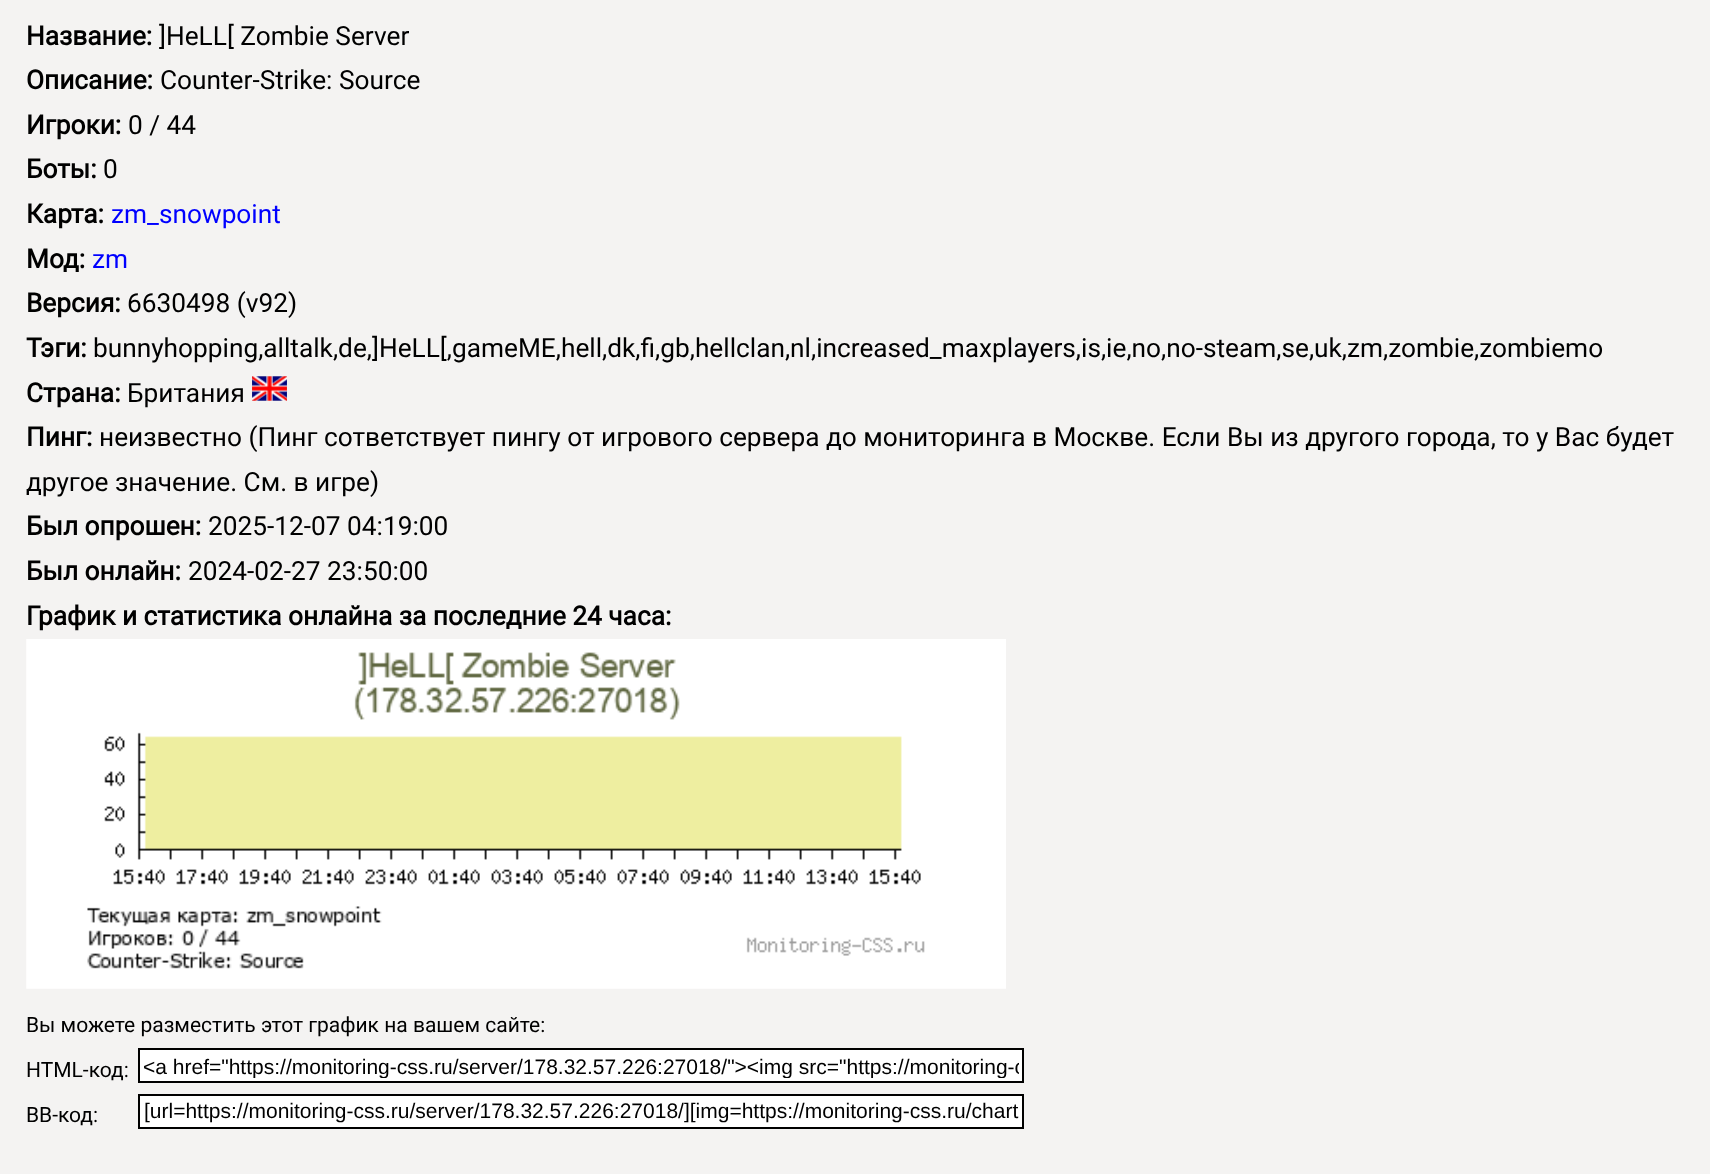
<svg xmlns="http://www.w3.org/2000/svg" width="1710" height="1174" viewBox="0 0 1710 1174">
  <style>
    .t1 { font: bold 26.25px Roboto; fill: #000; }
    .t2 { font: 26.25px Roboto; fill: #000; }
    .t3 { font: 26.25px Roboto; fill: #00f; }
    .t4 { font: 21px Roboto; fill: #000; }
    .t5 { font: 21px Liberation Sans; fill: #000; }
  </style>
  <defs>
    <clipPath id="clip1"><rect x="144" y="1054" width="875" height="24"/></clipPath>
  </defs>
  <rect width="100%" height="100%" fill="#f4f3f2"/>
  <text x="26" y="45" class="t1">Название:</text>
  <text x="159" y="45" class="t2">]HeLL[ Zombie Server</text>
  <text x="26" y="89" class="t1">Описание:</text>
  <text x="160" y="89" class="t2">Counter-Strike: Source</text>
  <text x="26" y="134" class="t1">Игроки:</text>
  <text x="128" y="134" class="t2">0 / 44</text>
  <text x="26" y="178" class="t1">Боты:</text>
  <text x="103" y="178" class="t2">0</text>
  <text x="26" y="223" class="t1">Карта:</text>
  <text x="111" y="223" class="t3">zm_snowpoint</text>
  <text x="26" y="268" class="t1">Мод:</text>
  <text x="92" y="268" class="t3">zm</text>
  <text x="26" y="312" class="t1">Версия:</text>
  <text x="127" y="312" class="t2">6630498 (v92)</text>
  <text x="26" y="357" class="t1">Тэги:</text>
  <text x="93" y="357" class="t2">bunnyhopping,alltalk,de,]HeLL[,gameME,hell,dk,fi,gb,hellclan,nl,increased_maxplayers,is,ie,no,no-steam,se,uk,zm,zombie,zombiemo</text>
  <text x="26" y="402" class="t1">Страна:</text>
  <text x="127" y="402" class="t2">Британия</text>
  <image x="252" y="376" width="35" height="25" href="images/1.png"/>
  <text x="26" y="446" class="t1">Пинг:</text>
  <text x="99" y="446" class="t2">неизвестно (Пинг сответствует пингу от игрового сервера до мониторинга в Москве. Если Вы из другого города, то у Вас будет</text>
  <text x="26" y="491" class="t2">другое значение. См. в игре)</text>
  <text x="26" y="535" class="t1">Был опрошен:</text>
  <text x="208" y="535" class="t2">2025-12-07 04:19:00</text>
  <text x="26" y="580" class="t1">Был онлайн:</text>
  <text x="188" y="580" class="t2">2024-02-27 23:50:00</text>
  <text x="26" y="625" class="t1">График и статистика онлайна за последние 24 часа:</text>
  <image x="26" y="639" width="980" height="350" href="images/2.png"/>
  <text x="26" y="1032" class="t4">Вы можете разместить этот график на вашем сайте:</text>
  <text x="26" y="1077" class="t4">HTML-код:</text>
  <rect x="139" y="1049" width="884" height="33" fill="#fff" stroke="#000" stroke-width="2"/>
  <g clip-path="url(#clip1)">
    <text x="143" y="1074" class="t5">&lt;a href="https://monitoring-css.ru/server/178.32.57.226:27018/"&gt;&lt;img src="https://monitoring-c</text>
  </g>
  <text x="26" y="1122" class="t4">BB-код:</text>
  <rect x="139" y="1095" width="884" height="33" fill="#fff" stroke="#000" stroke-width="2"/>
  <text x="144" y="1118" class="t5">[url=https://monitoring-css.ru/server/178.32.57.226:27018/][img=https://monitoring-css.ru/chart</text>
</svg>
